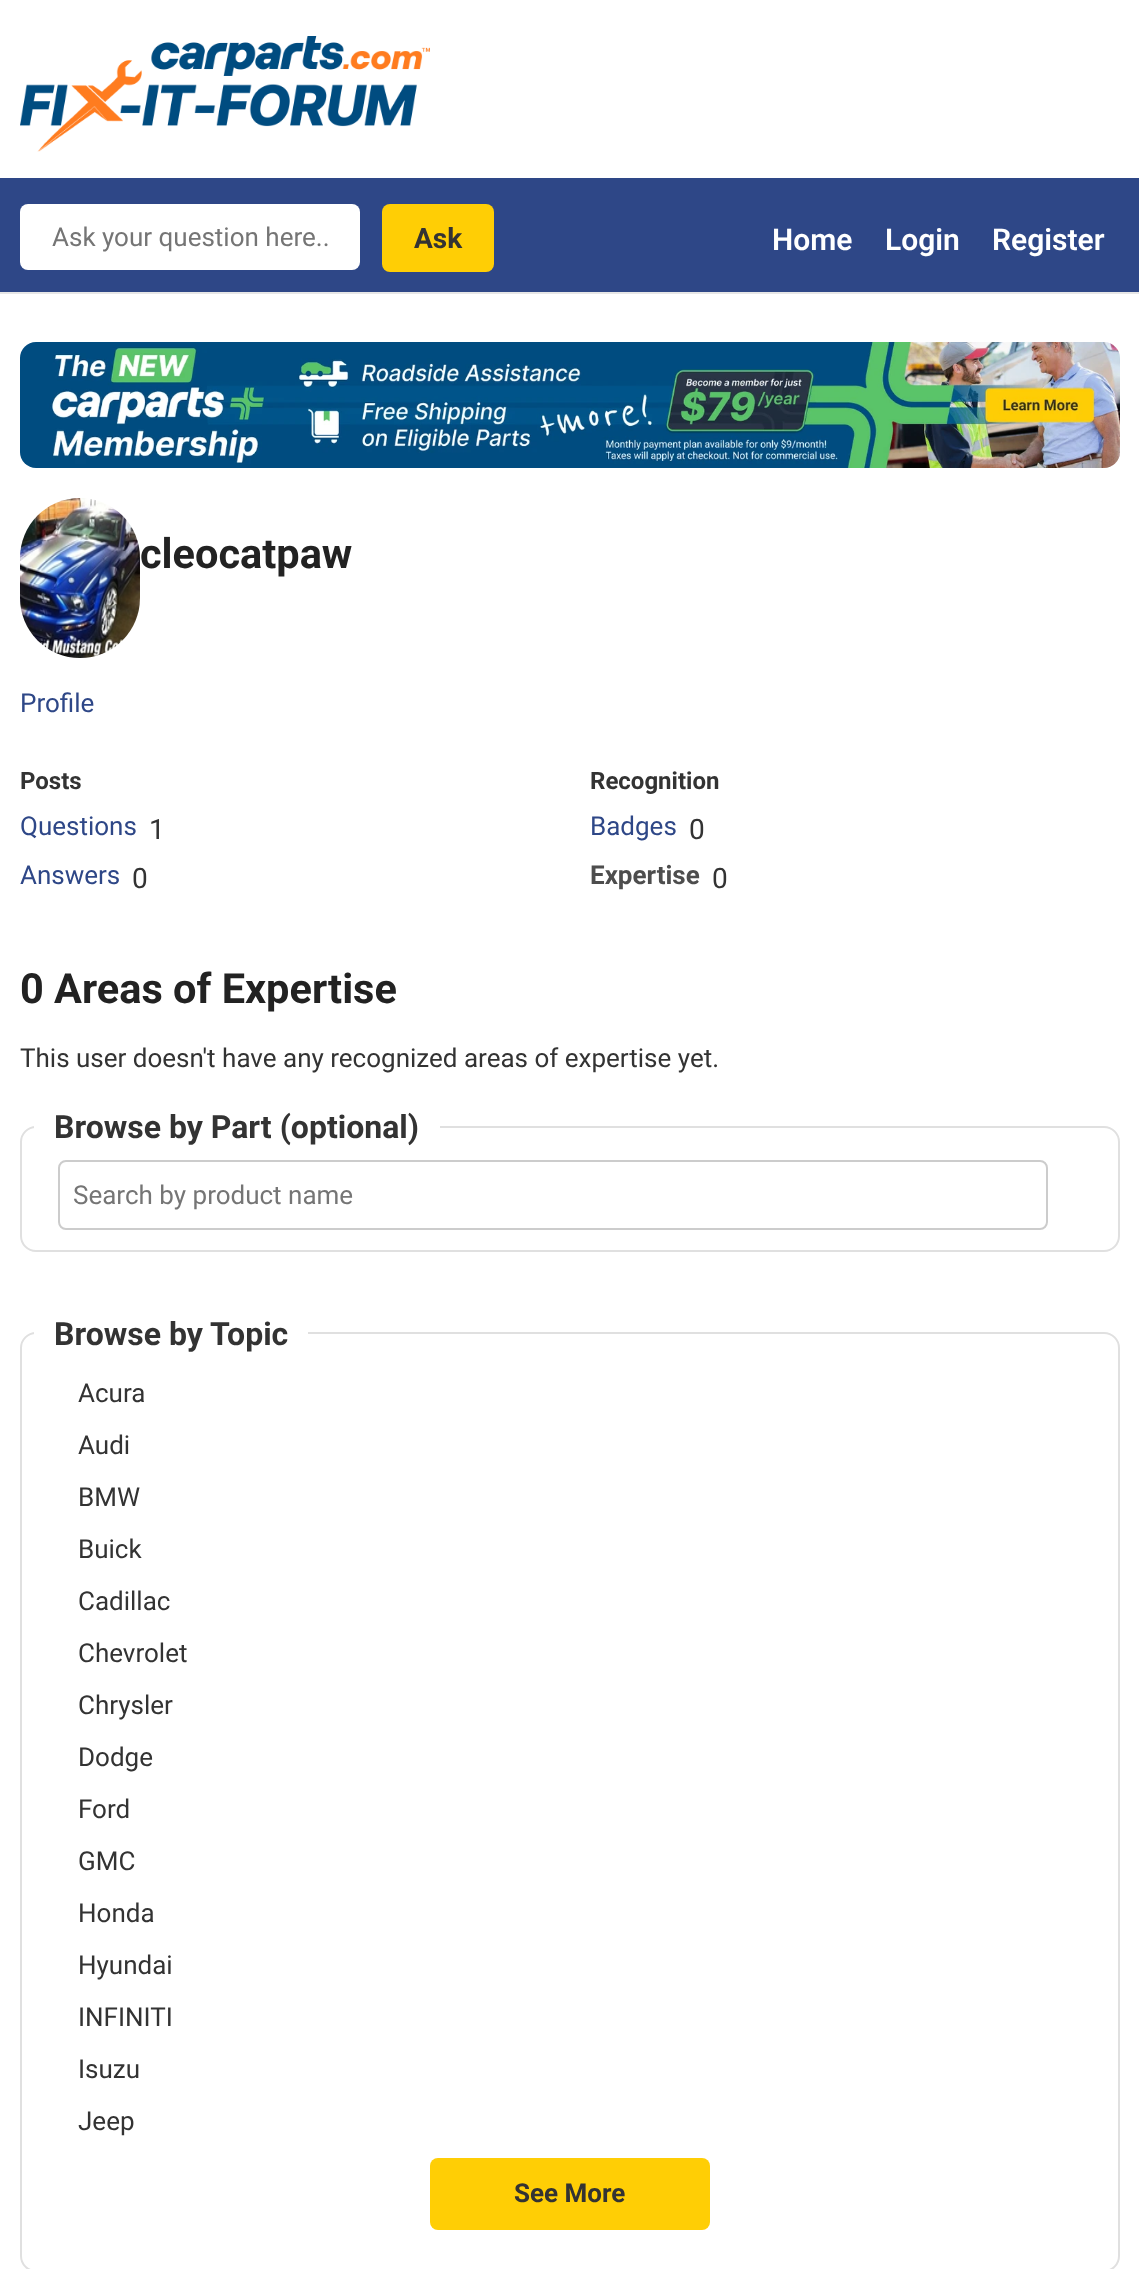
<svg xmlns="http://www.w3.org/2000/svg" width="1139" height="2269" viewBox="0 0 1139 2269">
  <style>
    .t1 { font: 26px Roboto; fill: #757575; }
    .t2 { font: bold 28px Roboto; fill: #333; }
    .t3 { font: 600 30px Roboto; fill: #fff; }
    .t4 { font: bold 41.5px Roboto; fill: #222; }
    .t5 { font: 26px Roboto; fill: #2e4787; }
    .t6 { font: bold 24px Roboto; fill: #333; }
    .t7 { font: 28px Roboto; fill: #333; }
    .t8 { font: bold 26px Roboto; fill: #4d4d4d; }
    .t9 { font: 26px Roboto; fill: #333; }
    .t10 { font: bold 32px Roboto; fill: #333; }
    .t11 { font: bold 26px Roboto; fill: #333; }
  </style>
  <rect width="100%" height="100%" fill="#fff"/>
  <image x="20" y="36" width="410" height="116" href="images/1.png"/>
  <rect x="0" y="178" width="1139" height="114" fill="#2e4787"/>
  <rect x="0" y="292" width="1139" height="2" fill="#e6e6e6"/>
  <rect x="20" y="204" width="340" height="66" rx="8" fill="#fff"/>
  <text x="52" y="246" class="t1">Ask your question here..</text>
  <rect x="382" y="204" width="112" height="68" rx="8" fill="#ffce05"/>
  <text x="414" y="248" class="t2">Ask</text>
  <text x="772" y="250" class="t3">Home</text>
  <text x="885" y="250" class="t3">Login</text>
  <text x="992" y="250" class="t3">Register</text>
  <image x="20" y="342" width="1100" height="126" href="images/2.png"/>
  <image x="20" y="498" width="120" height="160" href="images/3.png"/>
  <text x="140" y="568" class="t4">cleocatpaw</text>
  <text x="20" y="712" class="t5">Profile</text>
  <text x="20" y="789" class="t6">Posts</text>
  <text x="20" y="835" class="t5">Questions</text>
  <text x="149" y="839" class="t7">1</text>
  <text x="20" y="884" class="t5">Answers</text>
  <text x="132" y="888" class="t7">0</text>
  <text x="590" y="789" class="t6">Recognition</text>
  <text x="590" y="835" class="t5">Badges</text>
  <text x="689" y="839" class="t7">0</text>
  <text x="590" y="884" class="t8">Expertise</text>
  <text x="712" y="888" class="t7">0</text>
  <text x="20" y="1003" class="t4">0 Areas of Expertise</text>
  <text x="20" y="1067" class="t9">This user doesn't have any recognized areas of expertise yet.</text>
  <rect x="21" y="1127" width="1098" height="124" rx="15" fill="none" stroke="#e0e0e0" stroke-width="2"/>
  <rect x="34" y="1126" width="406" height="3" fill="#fff"/>
  <text x="54" y="1138" class="t10">Browse by Part (optional)</text>
  <rect x="59" y="1161" width="988" height="68" rx="7" fill="none" stroke="#ccc" stroke-width="2"/>
  <text x="73" y="1204" class="t1">Search by product name</text>
  <rect x="21" y="1333" width="1098" height="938" rx="15" fill="none" stroke="#e0e0e0" stroke-width="2"/>
  <rect x="34" y="1332" width="274" height="3" fill="#fff"/>
  <text x="54" y="1345" class="t10">Browse by Topic</text>
  <text x="78" y="1402" class="t9">Acura</text>
  <text x="78" y="1454" class="t9">Audi</text>
  <text x="78" y="1506" class="t9">BMW</text>
  <text x="78" y="1558" class="t9">Buick</text>
  <text x="78" y="1610" class="t9">Cadillac</text>
  <text x="78" y="1662" class="t9">Chevrolet</text>
  <text x="78" y="1714" class="t9">Chrysler</text>
  <text x="78" y="1766" class="t9">Dodge</text>
  <text x="78" y="1818" class="t9">Ford</text>
  <text x="78" y="1870" class="t9">GMC</text>
  <text x="78" y="1922" class="t9">Honda</text>
  <text x="78" y="1974" class="t9">Hyundai</text>
  <text x="78" y="2026" class="t9">INFINITI</text>
  <text x="78" y="2078" class="t9">Isuzu</text>
  <text x="78" y="2130" class="t9">Jeep</text>
  <rect x="430" y="2158" width="280" height="72" rx="8" fill="#ffce05"/>
  <text x="514" y="2202" class="t11">See More</text>
</svg>
